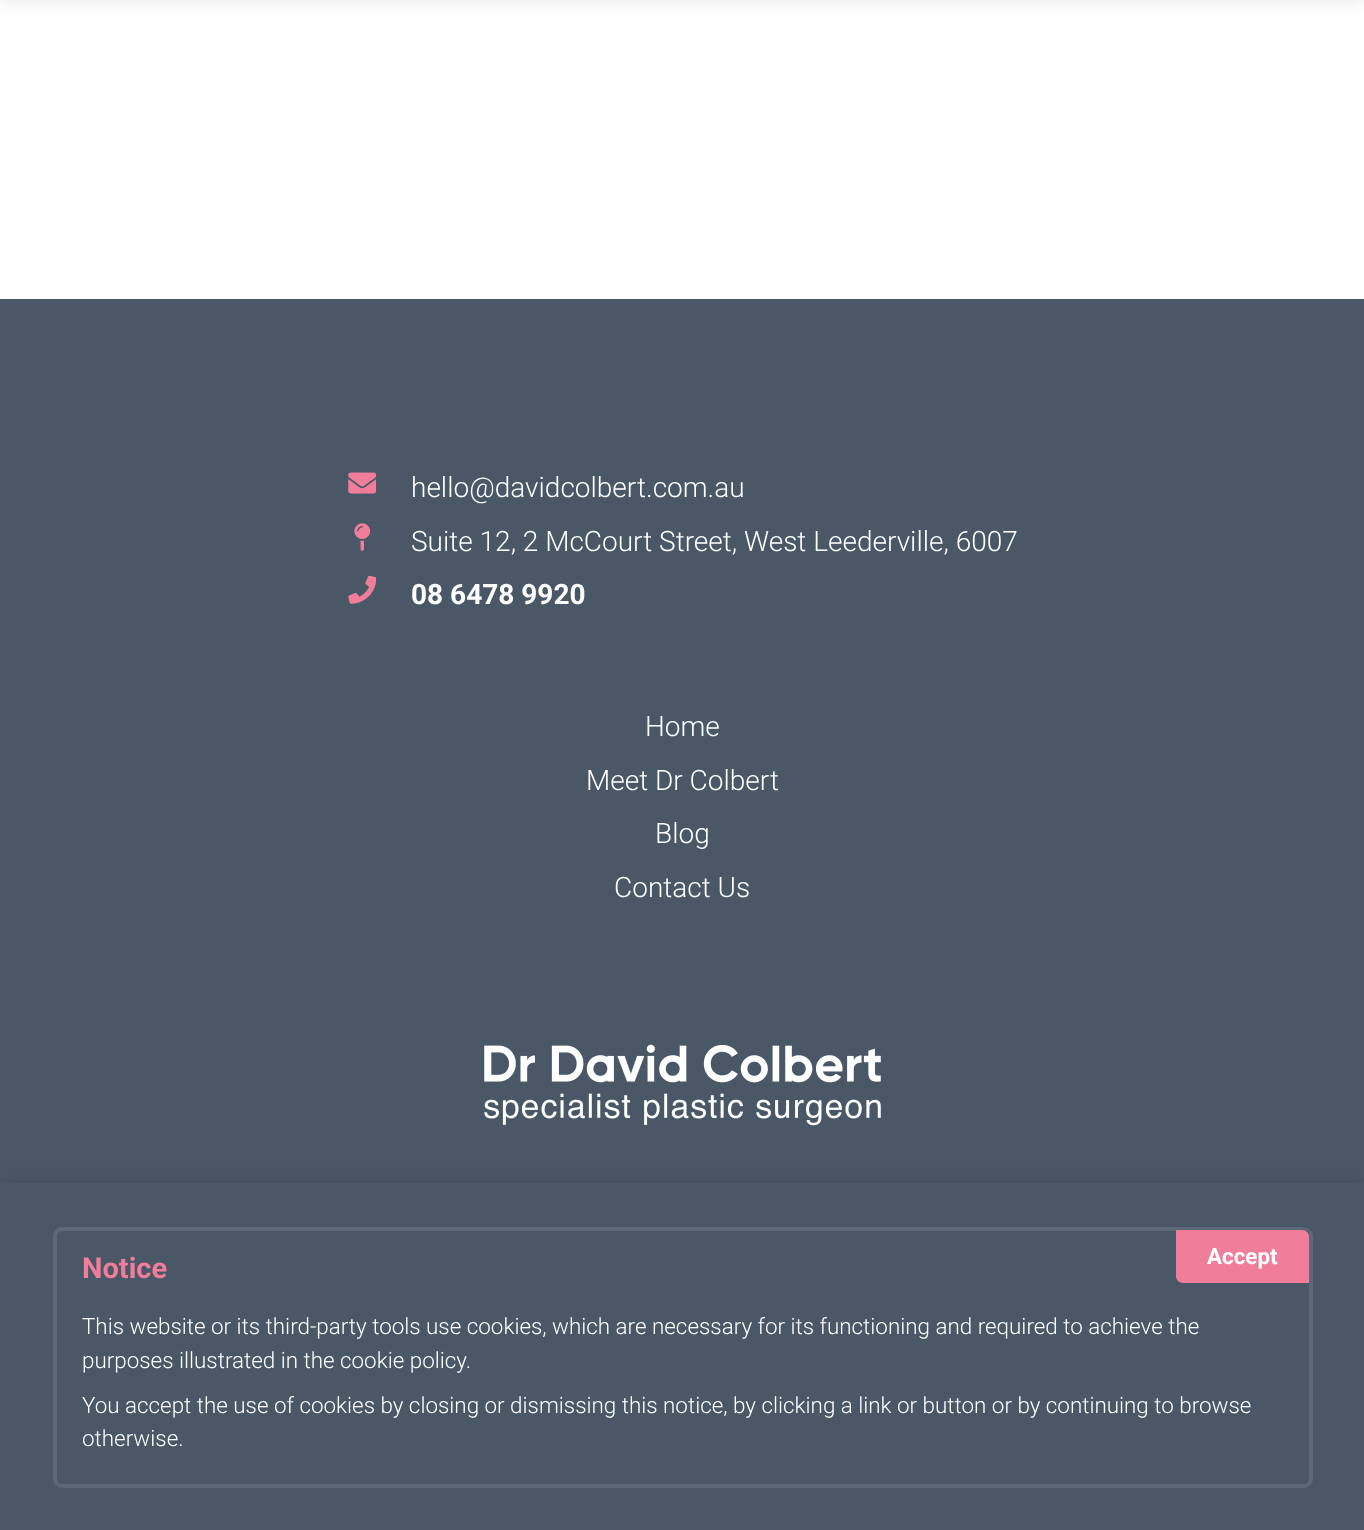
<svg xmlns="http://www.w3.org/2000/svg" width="1364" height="1530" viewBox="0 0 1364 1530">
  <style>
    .t1 { font: 300 28px Roboto; fill: #fff; }
    .t2 { font: bold 28px Roboto; fill: #fff; }
    .t3 { font: bold 29px Roboto; fill: #f07d99; }
    .t4 { font: bold 22.4px Roboto; fill: #fff; }
    .t5 { font: 300 22.4px Roboto; fill: #fff; }
  </style>
  <rect width="100%" height="100%" fill="#fff"/>
  <rect x="0" y="-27" width="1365" height="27" fill="#0000001a" filter="blur(9px)"/>
  <rect x="0" y="299" width="1364" height="884" fill="#495766"/>
  <image x="348" y="472" width="28" height="22" href="images/1.png"/>
  <text x="411" y="497" class="t1">hello@davidcolbert.com.au</text>
  <image x="354" y="523" width="17" height="28" href="images/2.png"/>
  <text x="411" y="551" class="t1">Suite 12, 2 McCourt Street, West Leederville, 6007</text>
  <image x="348" y="576" width="28" height="28" href="images/3.png"/>
  <text x="411" y="604" class="t2">08 6478 9920</text>
  <text x="645" y="736" class="t1">Home</text>
  <text x="586" y="790" class="t1">Meet Dr Colbert</text>
  <text x="655" y="843" class="t1">Blog</text>
  <text x="614" y="897" class="t1">Contact Us</text>
  <image x="484" y="1044" width="397" height="82" href="images/4.png"/>
  <rect x="0" y="1183" width="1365" height="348" fill="#0000001a" filter="blur(9px)"/>
  <rect x="0" y="1183" width="1364" height="347" fill="#495766"/>
  <rect x="55" y="1229" width="1256" height="257" rx="7" fill="none" stroke="#5b6875" stroke-width="4"/>
  <text x="82" y="1278" class="t3">Notice</text>
  <path d="M1176 1230H1302C1306 1230 1309 1233 1309 1237V1283H1183C1179 1283 1176 1280 1176 1276Z" fill="#f07d99"/>
  <text x="1207" y="1264" class="t4">Accept</text>
  <text x="82" y="1334" class="t5">This website or its third-party tools use cookies, which are necessary for its functioning and required to achieve the</text>
  <text x="82" y="1368" class="t5">purposes illustrated in the cookie policy.</text>
  <text x="82" y="1413" class="t5">You accept the use of cookies by closing or dismissing this notice, by clicking a link or button or by continuing to browse</text>
  <text x="82" y="1446" class="t5">otherwise.</text>
</svg>
